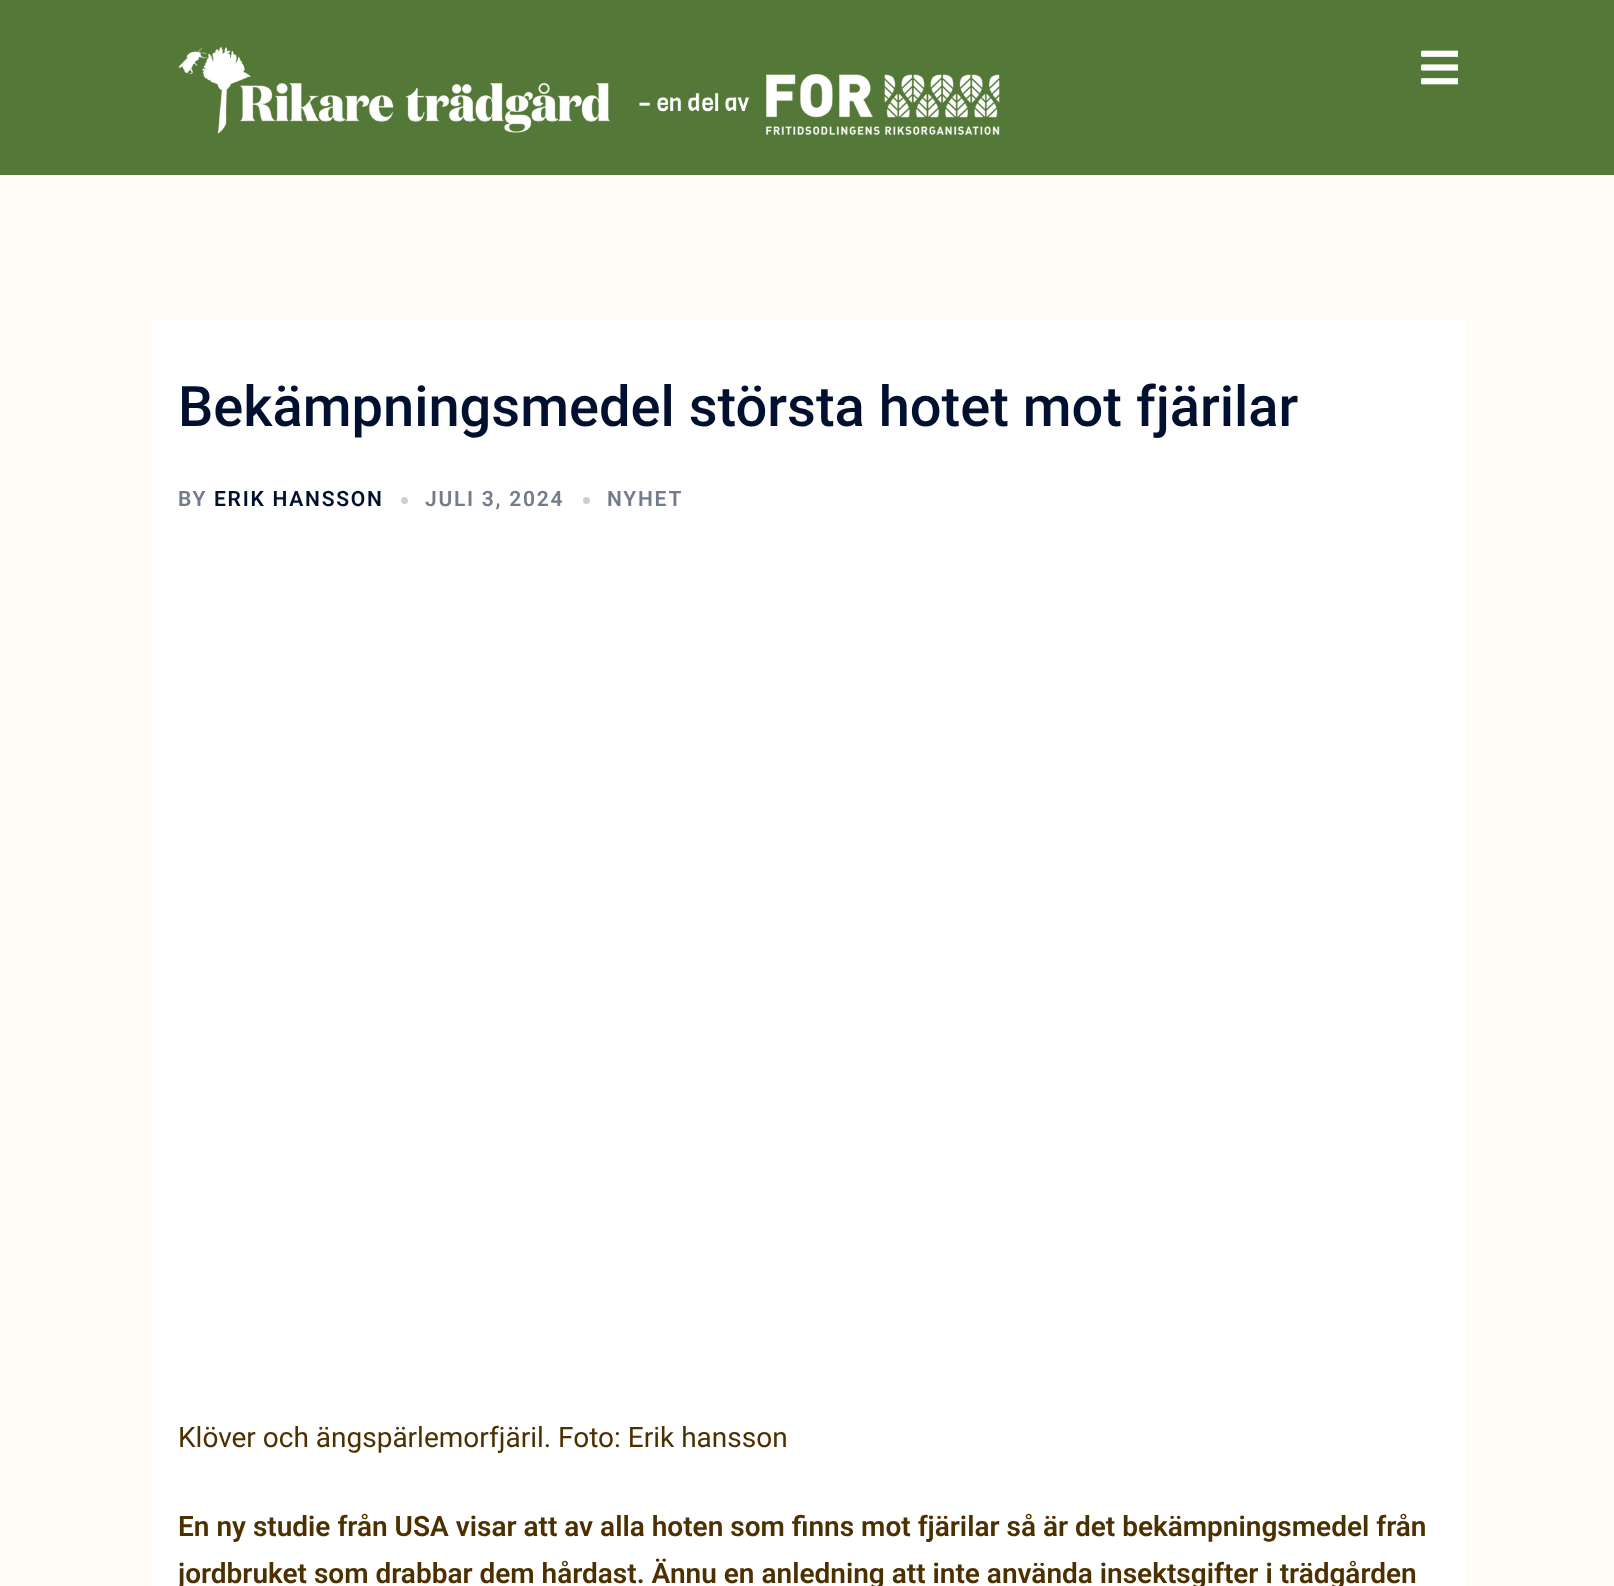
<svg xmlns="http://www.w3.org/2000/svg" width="1614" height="1586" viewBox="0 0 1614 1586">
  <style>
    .t1 { font: 500 56px Roboto; fill: #00102e; }
    .t2 { font: 600 21px Roboto; letter-spacing: 1.75px; fill: #737c8c; }
    .t3 { font: 600 21px Roboto; letter-spacing: 1.75px; fill: #00102e; }
    .t4 { font: 28px Roboto; fill: #4c3000; }
    .t5 { font: 600 28px Roboto; fill: #4c3000; }
  </style>
  <rect width="100%" height="100%" fill="#fffcf7"/>
  <rect x="0" y="0" width="1614" height="175" fill="#547837"/>
  <image x="178" y="46" width="822" height="89" href="images/1.png"/>
  <image x="1421" y="50" width="37" height="35" href="images/2.png"/>
  <rect x="152" y="320" width="1313" height="1266" fill="#fff"/>
  <text x="178" y="426" class="t1">Bekämpningsmedel största hotet mot fjärilar</text>
  <text x="178" y="506" class="t2">BY</text>
  <text x="214" y="506" class="t3">ERIK HANSSON</text>
  <circle cx="404.5" cy="500.5" r="3.5" fill="#cccfd5"/>
  <text x="425" y="506" class="t2">JULI 3, 2024</text>
  <circle cx="586.5" cy="500.5" r="3.5" fill="#cccfd5"/>
  <text x="607" y="506" class="t2">NYHET</text>
  <text x="178" y="1447" class="t4">Klöver och ängspärlemorfjäril. Foto: Erik hansson</text>
  <text x="178" y="1536" class="t5">En ny studie från USA visar att av alla hoten som finns mot fjärilar så är det bekämpningsmedel från</text>
  <text x="178" y="1583" class="t5">jordbruket som drabbar dem hårdast. Ännu en anledning att inte använda insektsgifter i trädgården</text>
</svg>
